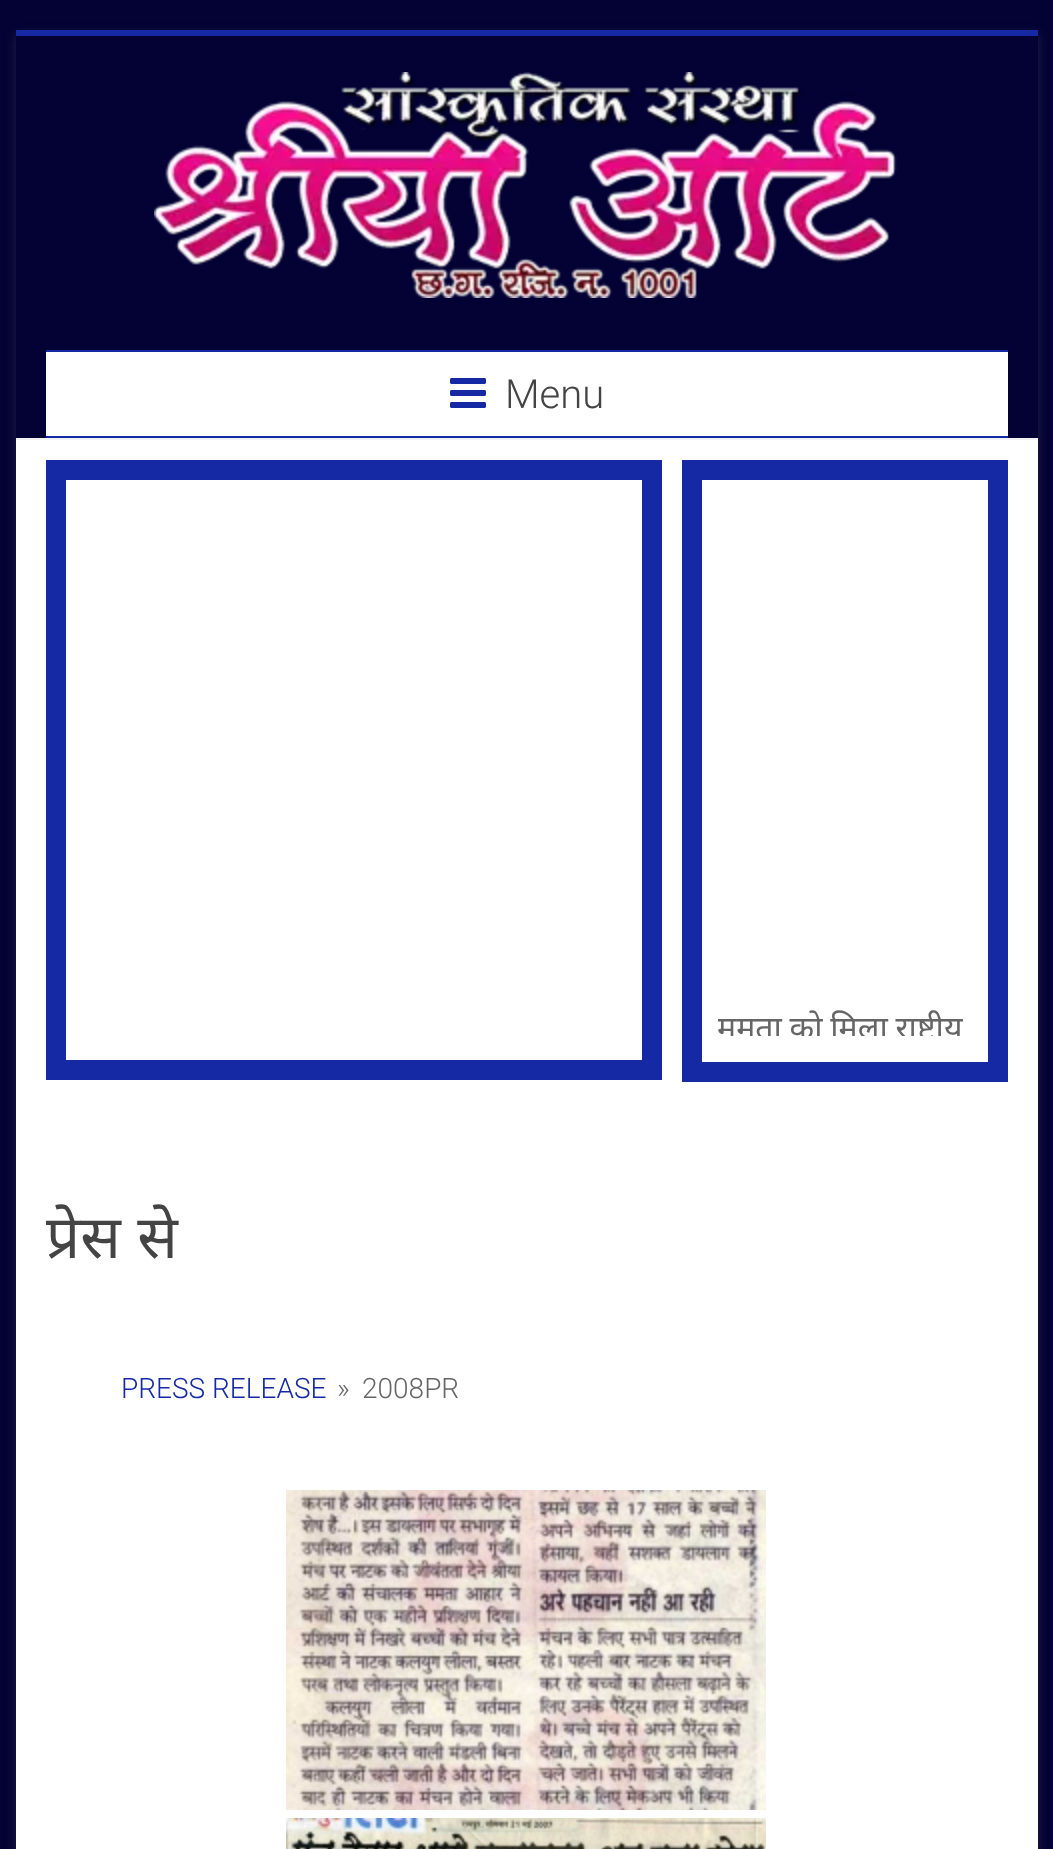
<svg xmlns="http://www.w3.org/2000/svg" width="1053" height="1849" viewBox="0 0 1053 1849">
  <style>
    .t1 { font: 300 40px Roboto; fill: #444; }
    .t2 { font: 32px Noto Sans; fill: #666; }
    .t3 { font: 60px Noto Sans; fill: #444; }
    .t4 { font: 300 28px Roboto; fill: #1429a3; }
    .t5 { font: 300 28px Roboto; fill: #666; }
  </style>
  <defs>
    <clipPath id="clip1"><rect x="718" y="496" width="254" height="540"/></clipPath>
  </defs>
  <rect width="100%" height="100%" fill="#040235"/>
  <rect x="16" y="34" width="1022" height="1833" fill="#6464644d" filter="blur(6px)"/>
  <rect x="16" y="440" width="1022" height="1409" fill="#fff"/>
  <rect x="16" y="30" width="1022" height="6" fill="#1429a3"/>
  <rect x="16" y="36" width="1022" height="402" fill="#040235"/>
  <rect x="16" y="438" width="1022" height="2" fill="#f2f2f2"/>
  <image x="154" y="72" width="743" height="226" href="images/1.png"/>
  <rect x="46" y="350" width="962" height="2" fill="#1429a3"/>
  <rect x="46" y="436" width="962" height="2" fill="#1429a3"/>
  <rect x="46" y="352" width="962" height="84" fill="#fff"/>
  <image x="450" y="378" width="36" height="30" href="images/2.png"/>
  <text x="505" y="408" class="t1">Menu</text>
  <rect x="56" y="470" width="596" height="600" fill="none" stroke="#1429a3" stroke-width="20"/>
  <rect x="692" y="470" width="306" height="602" fill="none" stroke="#1429a3" stroke-width="20"/>
  <g clip-path="url(#clip1)">
    <text x="717" y="1039" word-spacing="-0.5" class="t2">ममता को मिला राष्ट्रीय</text>
  </g>
  <text x="46" y="1258" word-spacing="1" class="t3">प्रेस से</text>
  <text x="121" y="1398" class="t4">PRESS RELEASE</text>
  <text x="337" y="1398" class="t5">»</text>
  <text x="362" y="1398" class="t5">2008PR</text>
  <image x="286" y="1490" width="480" height="320" href="images/3.png"/>
  <image x="286" y="1818" width="480" height="31" href="images/4.png"/>
</svg>
